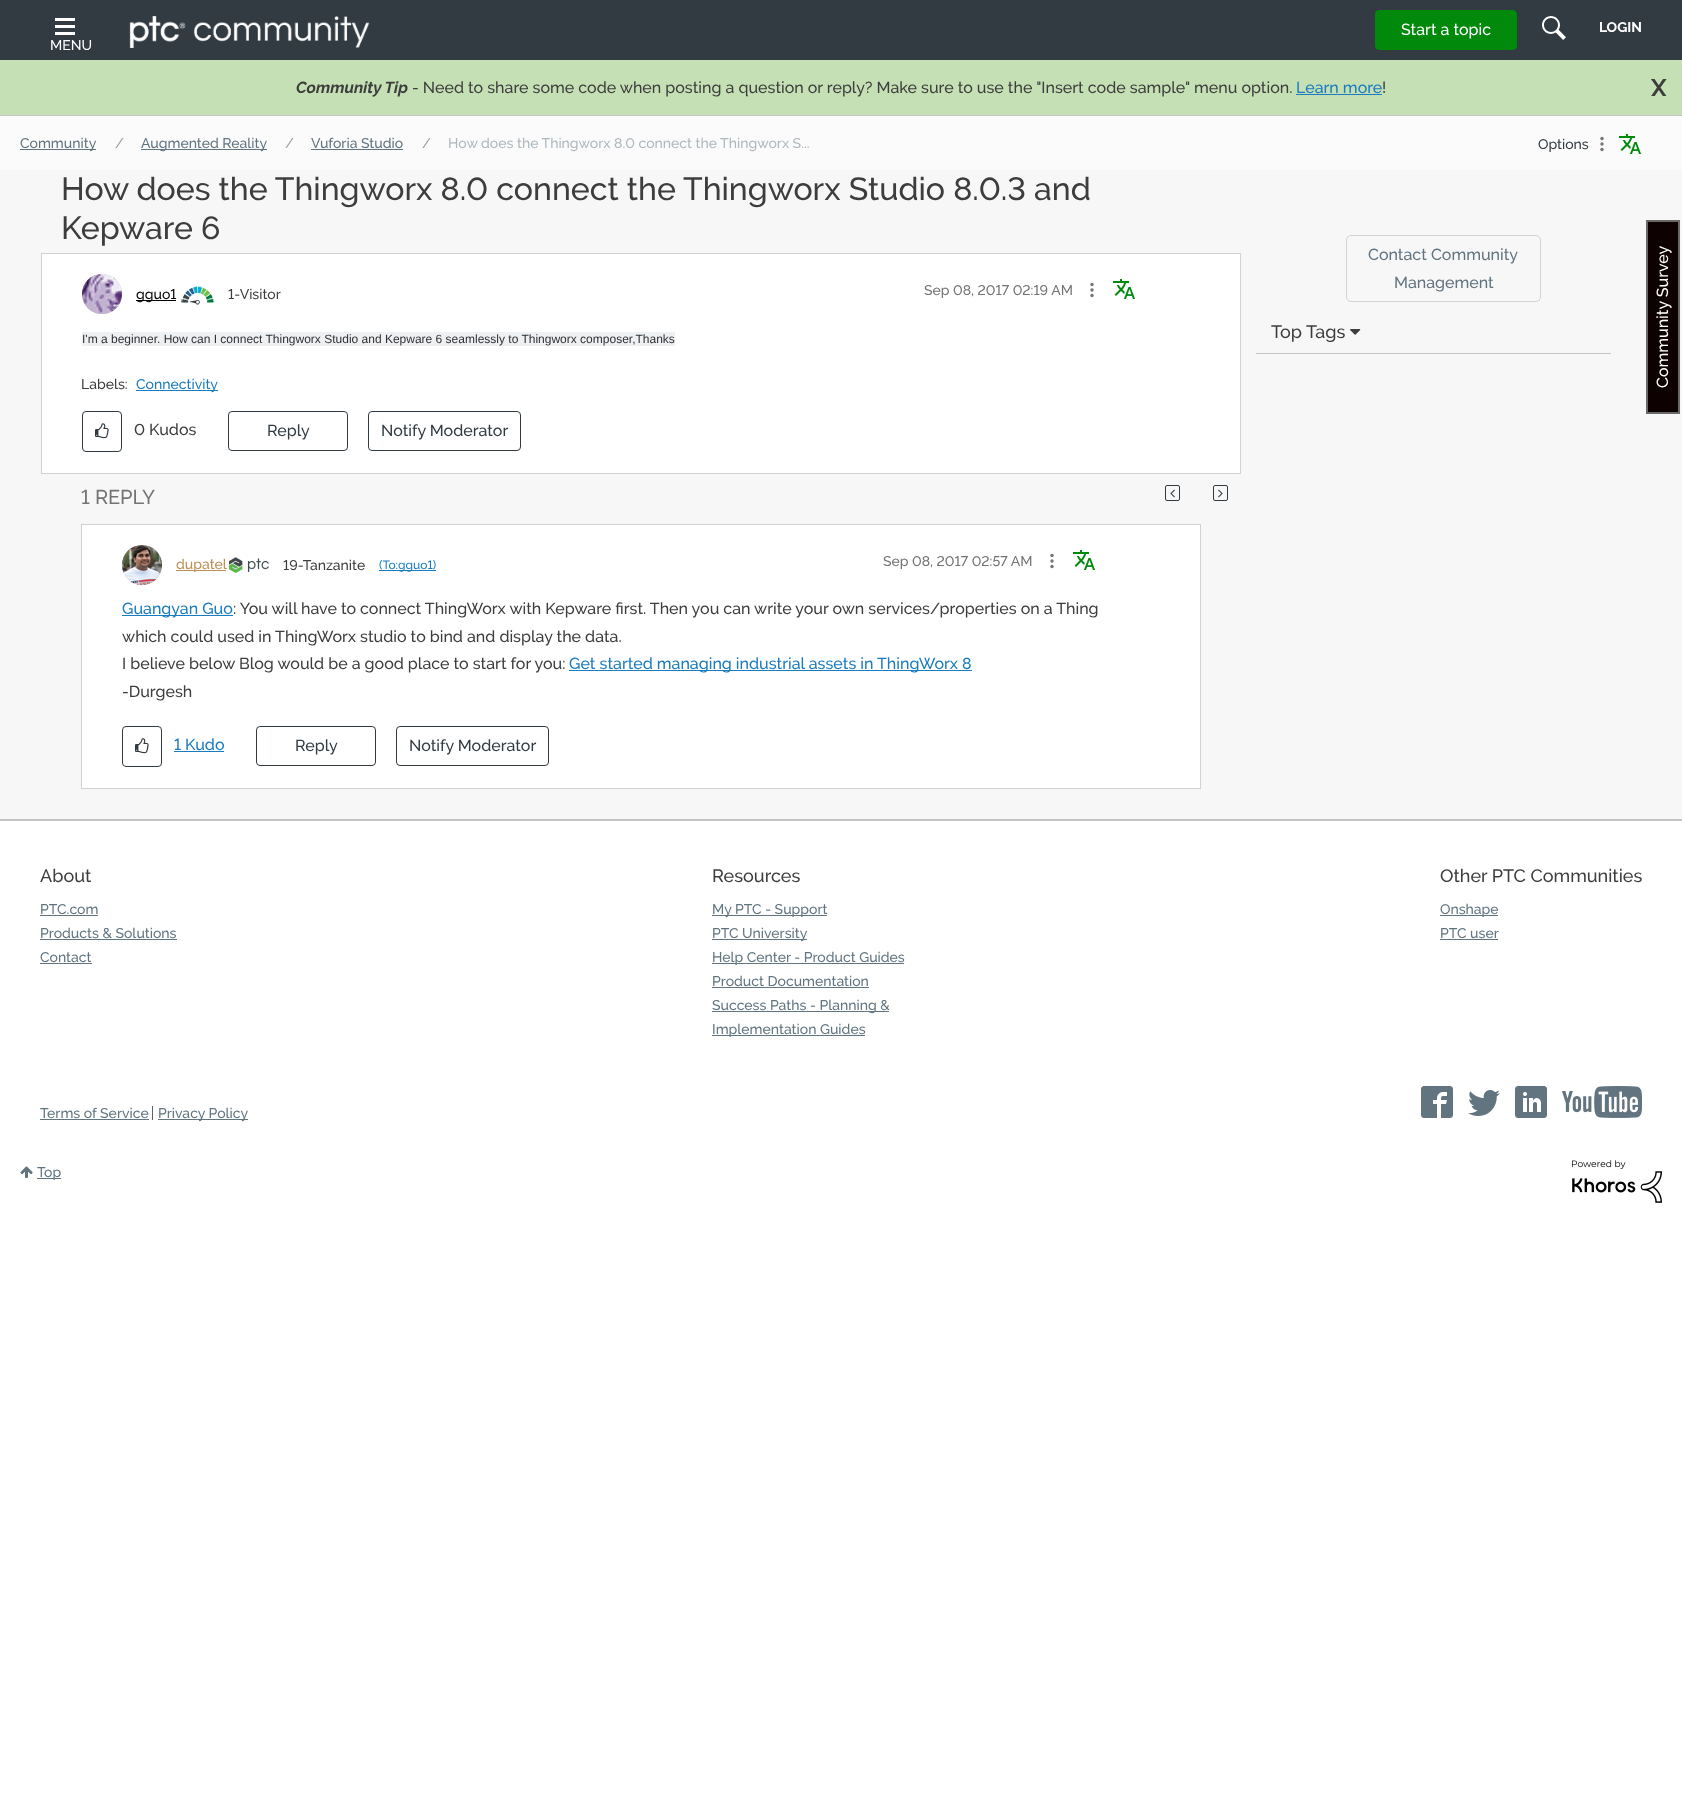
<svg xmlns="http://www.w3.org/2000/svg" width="1682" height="1796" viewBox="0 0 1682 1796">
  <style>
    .t1 { font: 500 16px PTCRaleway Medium; fill: #fff; }
    .t2 { font: bold 14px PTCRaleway; fill: #fff; }
    .t3 { font: 500 14px PTCRaleway Medium; fill: #fff; }
    .t4 { font: italic bold 16px PTCRaleway; fill: #3d3d3d; }
    .t5 { font: 500 16px PTCRaleway Medium; fill: #3d3d3d; }
    .t6 { font: 500 16px PTCRaleway Medium; fill: #197bc0; }
    .t7 { font: bold 24px PTCRaleway; fill: #3d3d3d; }
    .t8 { font: 500 14px PTCRaleway Medium; fill: #617480; }
    .t9 { font: 500 14px PTCRaleway Medium; fill: #a1a1a1; }
    .t10 { font: 500 14px PTCRaleway Medium; fill: #aeb8bd; }
    .t11 { font: 500 14px PTCRaleway Medium; fill: #323b42; }
    .t12 { font: 500 32px PTCRaleway Medium; fill: #3d3d3d; }
    .t13 { font: 500 14px PTCRaleway Medium; fill: #000; }
    .t14 { font: 500 14px PTCRaleway Medium; fill: #3d3d3d; }
    .t15 { font: 500 14px PTCRaleway Medium; fill: #747474; }
    .t16 { font: 12px Liberation Sans; fill: #2e3033; }
    .t17 { font: 500 14px PTCRaleway Medium; fill: #197bc0; }
    .t18 { font: 500 16px PTCRaleway Medium; fill: #323b42; }
    .t19 { font: 500 20px PTCRaleway Medium; fill: #747474; }
    .t20 { font: 500 14px PTCRaleway Medium; fill: #bc9055; }
    .t21 { font: 500 12px PTCRaleway Medium; fill: #197bc0; }
    .t22 { font: 500 16px PTCRaleway Medium; fill: #617480; }
    .t23 { font: 500 18px PTCRaleway Medium; fill: #3d3d3d; }
  </style>
  <rect width="100%" height="100%" fill="#fff"/>
  <rect x="0" y="0" width="1682" height="60" fill="#323b42"/>
  <rect x="1375.5" y="10.5" width="141" height="39" rx="3.5" fill="#00890b" stroke="#00890b"/>
  <text x="1401" y="35" class="t1">Start a topic</text>
  <image x="1542" y="16" width="24" height="24" href="images/1.png"/>
  <text x="1599" y="32" class="t2">LOGIN</text>
  <image x="55" y="18" width="20" height="17" href="images/2.png"/>
  <text x="50" y="50" class="t3">MENU</text>
  <image x="129" y="16" width="241" height="32" href="images/3.png"/>
  <rect x="0" y="170" width="1682" height="649" fill="#f7f7f7"/>
  <rect x="0" y="60" width="1682" height="55" fill="#c5e0b4"/>
  <text x="296" y="93" class="t4">Community Tip</text>
  <text x="412" y="93" class="t5">- Need to share some code when posting a question or reply? Make sure to use the "Insert code sample" menu option.</text>
  <text x="1296" y="93" class="t6">Learn more</text>
  <rect x="1296" y="94" width="86" height="1" fill="#197bc0"/>
  <text x="1382" y="93" class="t5">!</text>
  <text x="1651" y="96" class="t7">X</text>
  <rect x="0" y="116" width="1682" height="54" fill="#fbfbfb"/>
  <rect x="0" y="115" width="1682" height="1" fill="#c4c4c4"/>
  <rect x="20" y="149" width="76" height="1" fill="#617480"/>
  <text x="20" y="148" class="t8">Community</text>
  <text x="115" y="148" class="t9">/</text>
  <rect x="141" y="149" width="126" height="1" fill="#617480"/>
  <text x="141" y="148" class="t8">Augmented Reality</text>
  <text x="285" y="148" class="t9">/</text>
  <text x="311" y="148" class="t8">Vuforia Studio</text>
  <rect x="311" y="149" width="92" height="1" fill="#617480"/>
  <text x="422" y="148" class="t9">/</text>
  <text x="448" y="148" class="t10">How does the Thingworx 8.0 connect the Thingworx S...</text>
  <text x="1538" y="149" class="t11">Options</text>
  <circle cx="1602" cy="138.5" r="1.7" fill="#747474"/>
  <circle cx="1602" cy="144" r="1.7" fill="#747474"/>
  <circle cx="1602" cy="149.5" r="1.7" fill="#747474"/>
  <image x="1619" y="134" width="22" height="20" href="images/4.png"/>
  <text x="61" y="200" class="t12">How does the Thingworx 8.0 connect the Thingworx Studio 8.0.3 and</text>
  <text x="61" y="239" class="t12">Kepware 6</text>
  <rect x="41.5" y="253.5" width="1199" height="220" fill="#fff" stroke="#d1d1d1"/>
  <rect x="82" y="274" width="40" height="40" rx="20" fill="#c4c4c4" filter="blur(0.5px)"/>
  <image x="82" y="274" width="40" height="40" href="images/5.png"/>
  <rect x="136" y="300" width="40" height="1" fill="#000"/>
  <text x="136" y="299" class="t13">gguo1</text>
  <image x="181" y="286" width="33" height="19" href="images/6.png"/>
  <text x="228" y="299" class="t14">1-Visitor</text>
  <text x="924" y="295" class="t15">Sep 08, 2017 02:19 AM</text>
  <circle cx="1092" cy="284.5" r="1.7" fill="#747474"/>
  <circle cx="1092" cy="290" r="1.7" fill="#747474"/>
  <circle cx="1092" cy="295.5" r="1.7" fill="#747474"/>
  <image x="1113" y="279" width="22" height="20" href="images/7.png"/>
  <rect x="82" y="332" width="593" height="14" fill="#eef0f2"/>
  <text x="82" y="343" class="t16">I'm a beginner. How can I connect Thingworx Studio and Kepware 6 seamlessly to Thingworx composer,Thanks</text>
  <text x="81" y="389" class="t14">Labels:</text>
  <rect x="136" y="390" width="82" height="1" fill="#197bc0"/>
  <text x="136" y="389" class="t17">Connectivity</text>
  <rect x="82.5" y="411.5" width="39" height="40" rx="3.5" fill="none" stroke="#323b42"/>
  <image x="95" y="423" width="14" height="16" href="images/8.png"/>
  <text x="134" y="435" class="t5">0 Kudos</text>
  <rect x="228.5" y="411.5" width="119" height="39" rx="3.5" fill="none" stroke="#323b42"/>
  <text x="267" y="436" class="t18">Reply</text>
  <rect x="368.5" y="411.5" width="152" height="39" rx="3.5" fill="none" stroke="#323b42"/>
  <text x="381" y="436" class="t18">Notify Moderator</text>
  <text x="81" y="504" class="t19">1 REPLY</text>
  <rect x="1165.5" y="485.5" width="14" height="15" rx="1.5" fill="none" stroke="#323b42"/>
  <image x="1170" y="489" width="5" height="9" href="images/9.png"/>
  <rect x="1213.5" y="485.5" width="14" height="15" rx="1.5" fill="none" stroke="#323b42"/>
  <image x="1218" y="489" width="5" height="9" href="images/10.png"/>
  <rect x="81.5" y="524.5" width="1119" height="264" fill="#fff" stroke="#d1d1d1"/>
  <rect x="122" y="545" width="40" height="40" rx="20" fill="#c4c4c4" filter="blur(0.5px)"/>
  <image x="122" y="545" width="40" height="40" href="images/11.png"/>
  <rect x="176" y="570" width="50" height="1" fill="#bc9055"/>
  <text x="176" y="569" class="t20">dupatel</text>
  <image x="229" y="557" width="40" height="16" href="images/12.png"/>
  <text x="283" y="570" class="t14">19-Tanzanite</text>
  <rect x="379" y="570" width="57" height="1" fill="#197bc0"/>
  <text x="379" y="569" class="t21">(To:gguo1)</text>
  <text x="883" y="566" class="t15">Sep 08, 2017 02:57 AM</text>
  <circle cx="1052" cy="555.5" r="1.7" fill="#747474"/>
  <circle cx="1052" cy="561" r="1.7" fill="#747474"/>
  <circle cx="1052" cy="566.5" r="1.7" fill="#747474"/>
  <image x="1073" y="550" width="22" height="20" href="images/7.png"/>
  <rect x="122" y="615" width="111" height="1" fill="#197bc0"/>
  <text x="122" y="614" class="t6">Guangyan Guo</text>
  <text x="233" y="614" class="t5">: You will have to connect ThingWorx with Kepware first. Then you can write your own services/properties on a Thing</text>
  <text x="122" y="642" class="t5">which could used in ThingWorx studio to bind and display the data.</text>
  <text x="122" y="669" class="t5">I believe below Blog would be a good place to start for you:</text>
  <rect x="569" y="670" width="403" height="1" fill="#197bc0"/>
  <text x="569" y="669" class="t6">Get started managing industrial assets in ThingWorx 8</text>
  <text x="122" y="697" class="t5">-Durgesh</text>
  <rect x="122.5" y="726.5" width="39" height="40" rx="3.5" fill="none" stroke="#323b42"/>
  <image x="135" y="738" width="14" height="16" href="images/8.png"/>
  <text x="174" y="750" class="t6">1 Kudo</text>
  <rect x="174" y="751" width="50" height="1" fill="#197bc0"/>
  <rect x="256.5" y="726.5" width="119" height="39" rx="3.5" fill="none" stroke="#323b42"/>
  <text x="295" y="751" class="t18">Reply</text>
  <rect x="396.5" y="726.5" width="152" height="39" rx="3.5" fill="none" stroke="#323b42"/>
  <text x="409" y="751" class="t18">Notify Moderator</text>
  <rect x="1346.5" y="235.5" width="194" height="66" rx="4.5" fill="none" stroke="#d3d3d3"/>
  <text x="1368" y="260" class="t22">Contact Community</text>
  <text x="1394" y="288" class="t22">Management</text>
  <rect x="1256" y="353" width="355" height="1" fill="#c4c4c4"/>
  <text x="1271" y="338" class="t23">Top Tags</text>
  <image x="1350" y="329" width="11" height="6" href="images/13.png"/>
  <rect x="0" y="819" width="1682" height="2" fill="#c4c4c4"/>
  <text x="40" y="882" class="t23">About</text>
  <text x="40" y="914" class="t8">PTC.com</text>
  <rect x="40" y="915" width="58" height="1" fill="#617480"/>
  <text x="40" y="938" class="t8">Products &amp; Solutions</text>
  <rect x="40" y="939" width="137" height="1" fill="#617480"/>
  <text x="40" y="962" class="t8">Contact</text>
  <rect x="40" y="963" width="52" height="1" fill="#617480"/>
  <text x="712" y="882" class="t23">Resources</text>
  <rect x="712" y="915" width="115" height="1" fill="#617480"/>
  <text x="712" y="914" class="t8">My PTC - Support</text>
  <rect x="712" y="939" width="95" height="1" fill="#617480"/>
  <text x="712" y="938" class="t8">PTC University</text>
  <rect x="712" y="963" width="192" height="1" fill="#617480"/>
  <text x="712" y="962" class="t8">Help Center - Product Guides</text>
  <text x="712" y="986" class="t8">Product Documentation</text>
  <rect x="712" y="987" width="157" height="1" fill="#617480"/>
  <rect x="712" y="1011" width="177" height="1" fill="#617480"/>
  <text x="712" y="1010" class="t8">Success Paths - Planning &amp;</text>
  <rect x="712" y="1035" width="153" height="1" fill="#617480"/>
  <text x="712" y="1034" class="t8">Implementation Guides</text>
  <text x="1440" y="882" class="t23">Other PTC Communities</text>
  <rect x="1440" y="915" width="58" height="1" fill="#617480"/>
  <text x="1440" y="914" class="t8">Onshape</text>
  <text x="1440" y="938" class="t8">PTC user</text>
  <rect x="1440" y="939" width="58" height="1" fill="#617480"/>
  <text x="40" y="1118" class="t8">Terms of Service</text>
  <rect x="40" y="1119" width="109" height="1" fill="#617480"/>
  <rect x="152" y="1106" width="1" height="14" fill="#5e6162"/>
  <rect x="158" y="1119" width="90" height="1" fill="#617480"/>
  <text x="158" y="1118" class="t8">Privacy Policy</text>
  <image x="1421" y="1086" width="32" height="32" href="images/14.png"/>
  <image x="1468" y="1090" width="32" height="26" href="images/15.png"/>
  <image x="1515" y="1086" width="32" height="32" href="images/16.png"/>
  <image x="1562" y="1086" width="80" height="32" href="images/17.png"/>
  <image x="20" y="1166" width="13" height="12" href="images/18.png"/>
  <rect x="37" y="1178" width="24" height="1" fill="#617480"/>
  <text x="37" y="1177" class="t8">Top</text>
  <image x="1572" y="1160" width="90" height="43" href="images/19.png"/>
  <rect x="1648" y="222" width="30" height="190" fill="#0e0101"/>
  <path d="M1647 413V221H1679V413Z" fill="none" stroke="#696969" stroke-width="2"/>
  <text x="1668" y="388" transform="rotate(-90 1668 388)" class="t1">Community Survey</text>
</svg>
